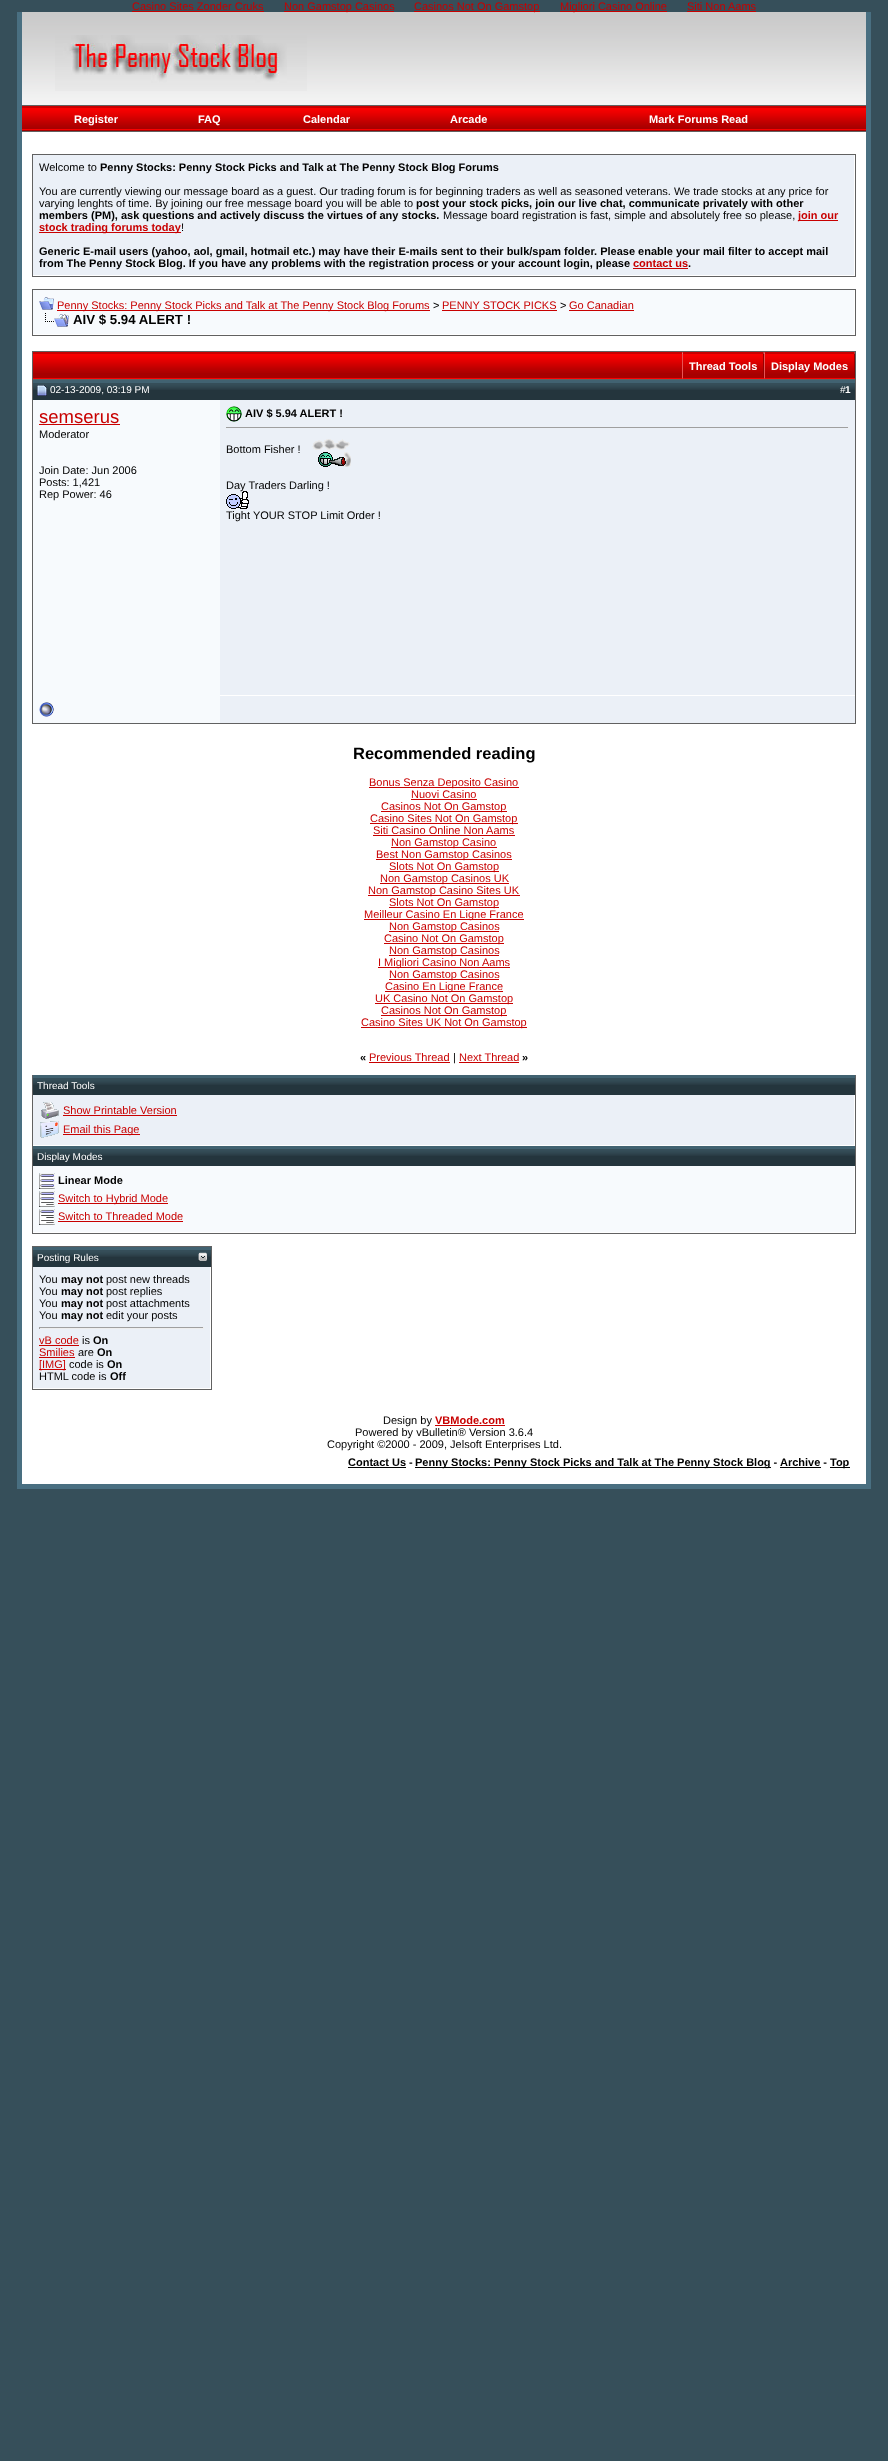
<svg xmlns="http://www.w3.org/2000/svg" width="888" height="2461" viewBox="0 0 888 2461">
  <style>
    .t1 { font: 11px Liberation Sans; fill: #c80000; }
    .t2 { font: bold 11px Liberation Sans; fill: #fff; }
    .t3 { font: 11px Liberation Sans; fill: #000; }
    .t4 { font: bold 11px Liberation Sans; fill: #000; }
    .t5 { font: bold 11px Liberation Sans; fill: #c80000; }
    .t6 { font: bold 13.25px Liberation Sans; fill: #000; }
    .t7 { font: 10px Liberation Sans; fill: #fff; }
    .t8 { font: bold 10px Liberation Sans; fill: #fff; }
    .t9 { font: 18.5px Liberation Sans; fill: #c80000; }
    .t10 { font: bold 16.5px Liberation Sans; fill: #000; }
  </style>
  <rect width="100%" height="100%" fill="#364f5a"/>
  <text x="132" y="10" class="t1">Casino Sites Zonder Cruks</text>
  <rect x="132" y="11" width="132" height="1" fill="#c80000"/>
  <rect x="284" y="11" width="110" height="1" fill="#c80000"/>
  <image x="22" y="12" width="844" height="93" href="images/1.png"/>
  <text x="284" y="10" class="t1">Non Gamstop Casinos</text>
  <rect x="414" y="11" width="126" height="1" fill="#c80000"/>
  <text x="414" y="10" class="t1">Casinos Not On Gamstop</text>
  <rect x="560" y="11" width="107" height="1" fill="#c80000"/>
  <text x="560" y="10" class="t1">Migliori Casino Online</text>
  <text x="687" y="10" class="t1">Siti Non Aams</text>
  <rect x="687" y="11" width="69" height="1" fill="#c80000"/>
  <rect x="22" y="132" width="844" height="1352" fill="#fff"/>
  <rect x="866" y="12" width="5" height="1477" fill="#496f81"/>
  <rect x="17" y="1484" width="854" height="5" fill="#496f81"/>
  <rect x="17" y="12" width="5" height="1477" fill="#496f81"/>
  <image x="55" y="35" width="252" height="56" href="images/2.png"/>
  <rect x="22" y="105" width="844" height="1" fill="#616161"/>
  <rect x="22" y="131" width="844" height="1" fill="#616161"/>
  <rect x="22" y="108" width="844" height="22" fill="#fa0000"/>
  <image x="22" y="110" width="149" height="19" href="images/3.png"/>
  <rect x="22" y="106" width="844" height="2" fill="#ca0000"/>
  <rect x="22" y="130" width="844" height="1" fill="#a10000"/>
  <text x="74" y="123" class="t2">Register</text>
  <image x="171" y="110" width="76" height="19" href="images/4.png"/>
  <text x="198" y="123" class="t2">FAQ</text>
  <image x="247" y="110" width="159" height="19" href="images/5.png"/>
  <text x="303" y="123" class="t2">Calendar</text>
  <image x="406" y="110" width="126" height="19" href="images/6.png"/>
  <text x="450" y="123" class="t2">Arcade</text>
  <image x="532" y="110" width="334" height="19" href="images/7.png"/>
  <text x="649" y="123" class="t2">Mark Forums Read</text>
  <rect x="32.5" y="154.5" width="823" height="122" fill="none" stroke="#616161"/>
  <rect x="33" y="155" width="821" height="120" fill="#ebf0f7"/>
  <text x="39" y="171" class="t3">Welcome to</text>
  <text x="100" y="171" class="t4">Penny Stocks: Penny Stock Picks and Talk at The Penny Stock Blog Forums</text>
  <text x="39" y="195" class="t3">You are currently viewing our message board as a guest. Our trading forum is for beginning traders as well as seasoned veterans. We trade stocks at any price for</text>
  <text x="39" y="207" class="t3">varying lenghts of time. By joining our free message board you will be able to</text>
  <text x="416" y="207" class="t4">post your stock picks, join our live chat, communicate privately with other</text>
  <text x="39" y="219" class="t4">members (PM), ask questions and actively discuss the virtues of any stocks.</text>
  <text x="443" y="219" class="t3">Message board registration is fast, simple and absolutely free so please,</text>
  <rect x="798" y="220" width="40" height="1" fill="#c80000"/>
  <text x="798" y="219" class="t5">join our</text>
  <rect x="39" y="232" width="142" height="1" fill="#c80000"/>
  <text x="39" y="231" class="t5">stock trading forums today</text>
  <text x="181" y="231" class="t3">!</text>
  <text x="39" y="255" class="t4">Generic E-mail users (yahoo, aol, gmail, hotmail etc.) may have their E-mails sent to their bulk/spam folder. Please enable your mail filter to accept mail</text>
  <text x="39" y="267" class="t4">from The Penny Stock Blog. If you have any problems with the registration process or your account login, please</text>
  <text x="633" y="267" class="t5">contact us</text>
  <text x="688" y="267" class="t4">.</text>
  <rect x="633" y="268" width="55" height="1" fill="#c80000"/>
  <rect x="32.5" y="289.5" width="823" height="46" fill="none" stroke="#616161"/>
  <rect x="33" y="290" width="821" height="44" fill="#f7fafd"/>
  <image x="39" y="297" width="15" height="13" href="images/8.png"/>
  <rect x="57" y="310" width="373" height="1" fill="#c80000"/>
  <text x="57" y="309" class="t1">Penny Stocks: Penny Stock Picks and Talk at The Penny Stock Blog Forums</text>
  <text x="433" y="309" class="t3">&gt;</text>
  <text x="442" y="309" class="t1">PENNY STOCK PICKS</text>
  <rect x="442" y="310" width="115" height="1" fill="#c80000"/>
  <text x="560" y="309" class="t3">&gt;</text>
  <text x="569" y="309" class="t1">Go Canadian</text>
  <rect x="569" y="310" width="65" height="1" fill="#c80000"/>
  <image x="45" y="313" width="24" height="14" href="images/9.png"/>
  <text x="73" y="324" class="t6">AIV $ 5.94 ALERT !</text>
  <rect x="32" y="351" width="824" height="1" fill="#616161"/>
  <rect x="855" y="351" width="1" height="28" fill="#616161"/>
  <rect x="32" y="351" width="1" height="28" fill="#616161"/>
  <rect x="33" y="373" width="649" height="5" fill="#a70000"/>
  <image x="33" y="354" width="649" height="19" href="images/10.png"/>
  <rect x="33" y="352" width="649" height="2" fill="#ca0000"/>
  <rect x="33" y="378" width="649" height="1" fill="#fa0000"/>
  <rect x="683" y="375" width="80" height="3" fill="#a70000"/>
  <image x="683" y="354" width="80" height="21" href="images/11.png"/>
  <path d="M682 352H764L763 354H683Z" fill="#ca0000"/>
  <path d="M764 352V379L763 378V354Z" fill="#960000"/>
  <rect x="682" y="378" width="82" height="1" fill="#fa0000"/>
  <path d="M682 379V352L683 354V378Z" fill="#e75454"/>
  <text x="689" y="370" class="t2">Thread Tools</text>
  <rect x="765" y="375" width="89" height="3" fill="#a70000"/>
  <image x="765" y="354" width="89" height="21" href="images/12.png"/>
  <path d="M764 352H855L854 354H765Z" fill="#ca0000"/>
  <path d="M855 352V379L854 378V354Z" fill="#960000"/>
  <rect x="764" y="378" width="91" height="1" fill="#fa0000"/>
  <path d="M764 379V352L765 354V378Z" fill="#e75454"/>
  <text x="771" y="370" class="t2">Display Modes</text>
  <rect x="32.5" y="379.5" width="823" height="344" fill="none" stroke="#616161"/>
  <rect x="33" y="390" width="822" height="10" fill="#24353d"/>
  <image x="33" y="380" width="187" height="10" href="images/13.png"/>
  <image x="37" y="385" width="10" height="11" href="images/14.png"/>
  <text x="50" y="393" class="t7">02-13-2009, 03:19 PM</text>
  <image x="220" y="380" width="635" height="10" href="images/15.png"/>
  <text x="840" y="393" class="t7">#</text>
  <text x="845" y="393" class="t8">1</text>
  <rect x="33" y="400" width="187" height="323" fill="#f7fafd"/>
  <text x="39" y="423" class="t9">semserus</text>
  <rect x="39" y="424" width="81" height="1" fill="#c80000"/>
  <text x="39" y="438" class="t3">Moderator</text>
  <text x="39" y="474" class="t3">Join Date: Jun 2006</text>
  <text x="39" y="486" class="t3">Posts: 1,421</text>
  <text x="39" y="498" class="t3">Rep Power: 46</text>
  <rect x="220" y="400" width="635" height="295" fill="#ebf0f7"/>
  <image x="226" y="406" width="16" height="16" href="images/16.png"/>
  <text x="245" y="417" class="t4">AIV $ 5.94 ALERT !</text>
  <rect x="226" y="427" width="623" height="1" fill="#9f9f9f"/>
  <rect x="848" y="427" width="1" height="1" fill="#eee"/>
  <text x="226" y="453" class="t3">Bottom Fisher !</text>
  <image x="312" y="439" width="39" height="28" href="images/17.png"/>
  <text x="226" y="489" class="t3">Day Traders Darling !</text>
  <image x="226" y="491" width="23" height="18" href="images/18.png"/>
  <text x="226" y="519" class="t3">Tight YOUR STOP Limit Order !</text>
  <image x="39" y="702" width="15" height="15" href="images/19.png"/>
  <rect x="220" y="696" width="635" height="27" fill="#ebf0f7"/>
  <text x="353" y="759" class="t10">Recommended reading</text>
  <rect x="369" y="787" width="150" height="1" fill="#c80000"/>
  <text x="369" y="786" class="t1">Bonus Senza Deposito Casino</text>
  <text x="411" y="798" class="t1">Nuovi Casino</text>
  <rect x="411" y="799" width="66" height="1" fill="#c80000"/>
  <rect x="381" y="811" width="126" height="1" fill="#c80000"/>
  <text x="381" y="810" class="t1">Casinos Not On Gamstop</text>
  <rect x="370" y="823" width="148" height="1" fill="#c80000"/>
  <text x="370" y="822" class="t1">Casino Sites Not On Gamstop</text>
  <text x="373" y="834" class="t1">Siti Casino Online Non Aams</text>
  <rect x="373" y="835" width="142" height="1" fill="#c80000"/>
  <rect x="391" y="847" width="106" height="1" fill="#c80000"/>
  <text x="391" y="846" class="t1">Non Gamstop Casino</text>
  <rect x="376" y="859" width="136" height="1" fill="#c80000"/>
  <text x="376" y="858" class="t1">Best Non Gamstop Casinos</text>
  <rect x="389" y="871" width="110" height="1" fill="#c80000"/>
  <text x="389" y="870" class="t1">Slots Not On Gamstop</text>
  <rect x="380" y="883" width="129" height="1" fill="#c80000"/>
  <text x="380" y="882" class="t1">Non Gamstop Casinos UK</text>
  <rect x="368" y="895" width="152" height="1" fill="#c80000"/>
  <text x="368" y="894" class="t1">Non Gamstop Casino Sites UK</text>
  <rect x="389" y="907" width="110" height="1" fill="#c80000"/>
  <text x="389" y="906" class="t1">Slots Not On Gamstop</text>
  <rect x="364" y="919" width="160" height="1" fill="#c80000"/>
  <text x="364" y="918" class="t1">Meilleur Casino En Ligne France</text>
  <rect x="389" y="931" width="110" height="1" fill="#c80000"/>
  <text x="389" y="930" class="t1">Non Gamstop Casinos</text>
  <rect x="384" y="943" width="120" height="1" fill="#c80000"/>
  <text x="384" y="942" class="t1">Casino Not On Gamstop</text>
  <rect x="389" y="955" width="110" height="1" fill="#c80000"/>
  <text x="389" y="954" class="t1">Non Gamstop Casinos</text>
  <rect x="378" y="967" width="132" height="1" fill="#c80000"/>
  <text x="378" y="966" class="t1">I Migliori Casino Non Aams</text>
  <rect x="389" y="979" width="110" height="1" fill="#c80000"/>
  <text x="389" y="978" class="t1">Non Gamstop Casinos</text>
  <rect x="385" y="991" width="118" height="1" fill="#c80000"/>
  <text x="385" y="990" class="t1">Casino En Ligne France</text>
  <rect x="375" y="1003" width="138" height="1" fill="#c80000"/>
  <text x="375" y="1002" class="t1">UK Casino Not On Gamstop</text>
  <rect x="381" y="1015" width="126" height="1" fill="#c80000"/>
  <text x="381" y="1014" class="t1">Casinos Not On Gamstop</text>
  <rect x="361" y="1027" width="166" height="1" fill="#c80000"/>
  <text x="361" y="1026" class="t1">Casino Sites UK Not On Gamstop</text>
  <text x="360" y="1061" class="t4">«</text>
  <text x="369" y="1061" class="t1">Previous Thread</text>
  <rect x="369" y="1062" width="81" height="1" fill="#c80000"/>
  <text x="453" y="1061" class="t3">|</text>
  <text x="459" y="1061" class="t1">Next Thread</text>
  <rect x="459" y="1062" width="60" height="1" fill="#c80000"/>
  <text x="522" y="1061" class="t4">»</text>
  <rect x="855" y="1075" width="1" height="159" fill="#616161"/>
  <rect x="32" y="1233" width="824" height="1" fill="#616161"/>
  <rect x="32" y="1075" width="1" height="159" fill="#616161"/>
  <rect x="33" y="1085" width="822" height="10" fill="#24353d"/>
  <image x="33" y="1075" width="822" height="10" href="images/20.png"/>
  <text x="37" y="1089" class="t7">Thread Tools</text>
  <rect x="33" y="1095" width="821" height="50" fill="#ebf0f7"/>
  <image x="41" y="1102" width="18" height="17" href="images/21.png"/>
  <text x="63" y="1114" class="t1">Show Printable Version</text>
  <rect x="63" y="1115" width="114" height="1" fill="#c80000"/>
  <image x="40" y="1121" width="19" height="17" href="images/22.png"/>
  <rect x="63" y="1134" width="77" height="1" fill="#c80000"/>
  <text x="63" y="1133" class="t1">Email this Page</text>
  <rect x="33" y="1156" width="822" height="10" fill="#24353d"/>
  <image x="33" y="1146" width="822" height="10" href="images/20.png"/>
  <text x="37" y="1160" class="t7">Display Modes</text>
  <rect x="33" y="1166" width="821" height="66" fill="#f7fafd"/>
  <image x="39" y="1173" width="16" height="16" href="images/23.png"/>
  <text x="58" y="1184" class="t4">Linear Mode</text>
  <image x="39" y="1191" width="16" height="16" href="images/24.png"/>
  <rect x="58" y="1203" width="110" height="1" fill="#c80000"/>
  <text x="58" y="1202" class="t1">Switch to Hybrid Mode</text>
  <image x="39" y="1209" width="16" height="16" href="images/25.png"/>
  <text x="58" y="1220" class="t1">Switch to Threaded Mode</text>
  <rect x="58" y="1221" width="125" height="1" fill="#c80000"/>
  <rect x="32.5" y="1246.5" width="179" height="143" fill="none" stroke="#616161"/>
  <rect x="33" y="1257" width="178" height="10" fill="#24353d"/>
  <image x="33" y="1247" width="178" height="10" href="images/26.png"/>
  <text x="37" y="1261" class="t7">Posting Rules</text>
  <image x="198" y="1252" width="9" height="9" href="images/27.png"/>
  <rect x="33" y="1267" width="177" height="121" fill="#ebf0f7"/>
  <text x="39" y="1283" class="t3">You</text>
  <text x="61" y="1283" class="t4">may not</text>
  <text x="106" y="1283" class="t3">post new threads</text>
  <text x="39" y="1295" class="t3">You</text>
  <text x="61" y="1295" class="t4">may not</text>
  <text x="106" y="1295" class="t3">post replies</text>
  <text x="39" y="1307" class="t3">You</text>
  <text x="61" y="1307" class="t4">may not</text>
  <text x="106" y="1307" class="t3">post attachments</text>
  <text x="39" y="1319" class="t3">You</text>
  <text x="61" y="1319" class="t4">may not</text>
  <text x="106" y="1319" class="t3">edit your posts</text>
  <rect x="39" y="1327" width="165" height="1" fill="#9f9f9f"/>
  <rect x="203" y="1327" width="1" height="2" fill="#eee"/>
  <rect x="39" y="1328" width="165" height="1" fill="#eee"/>
  <rect x="39" y="1327" width="1" height="2" fill="#9f9f9f"/>
  <text x="39" y="1344" class="t1">vB code</text>
  <rect x="39" y="1345" width="40" height="1" fill="#c80000"/>
  <text x="82" y="1344" class="t3">is</text>
  <text x="93" y="1344" class="t4">On</text>
  <text x="39" y="1356" class="t1">Smilies</text>
  <rect x="39" y="1357" width="36" height="1" fill="#c80000"/>
  <text x="78" y="1356" class="t3">are</text>
  <text x="97" y="1356" class="t4">On</text>
  <rect x="39" y="1369" width="27" height="1" fill="#c80000"/>
  <text x="39" y="1368" class="t1">[IMG]</text>
  <text x="69" y="1368" class="t3">code is</text>
  <text x="107" y="1368" class="t4">On</text>
  <text x="39" y="1380" class="t3">HTML code is</text>
  <text x="110" y="1380" class="t4">Off</text>
  <text x="383" y="1424" class="t3">Design by</text>
  <text x="435" y="1424" class="t5">VBMode.com</text>
  <rect x="435" y="1425" width="70" height="1" fill="#c80000"/>
  <text x="355" y="1436" class="t3">Powered by vBulletin® Version 3.6.4</text>
  <text x="327" y="1448" class="t3">Copyright ©2000 - 2009, Jelsoft Enterprises Ltd.</text>
  <text x="348" y="1466" class="t4">Contact Us -</text>
  <rect x="348" y="1467" width="58" height="1" fill="#000"/>
  <rect x="415" y="1467" width="356" height="1" fill="#000"/>
  <text x="415" y="1466" class="t4">Penny Stocks: Penny Stock Picks and Talk at The Penny Stock Blog - Archive -</text>
  <rect x="780" y="1467" width="41" height="1" fill="#000"/>
  <rect x="830" y="1467" width="20" height="1" fill="#000"/>
  <text x="830" y="1466" class="t4">Top</text>
</svg>
